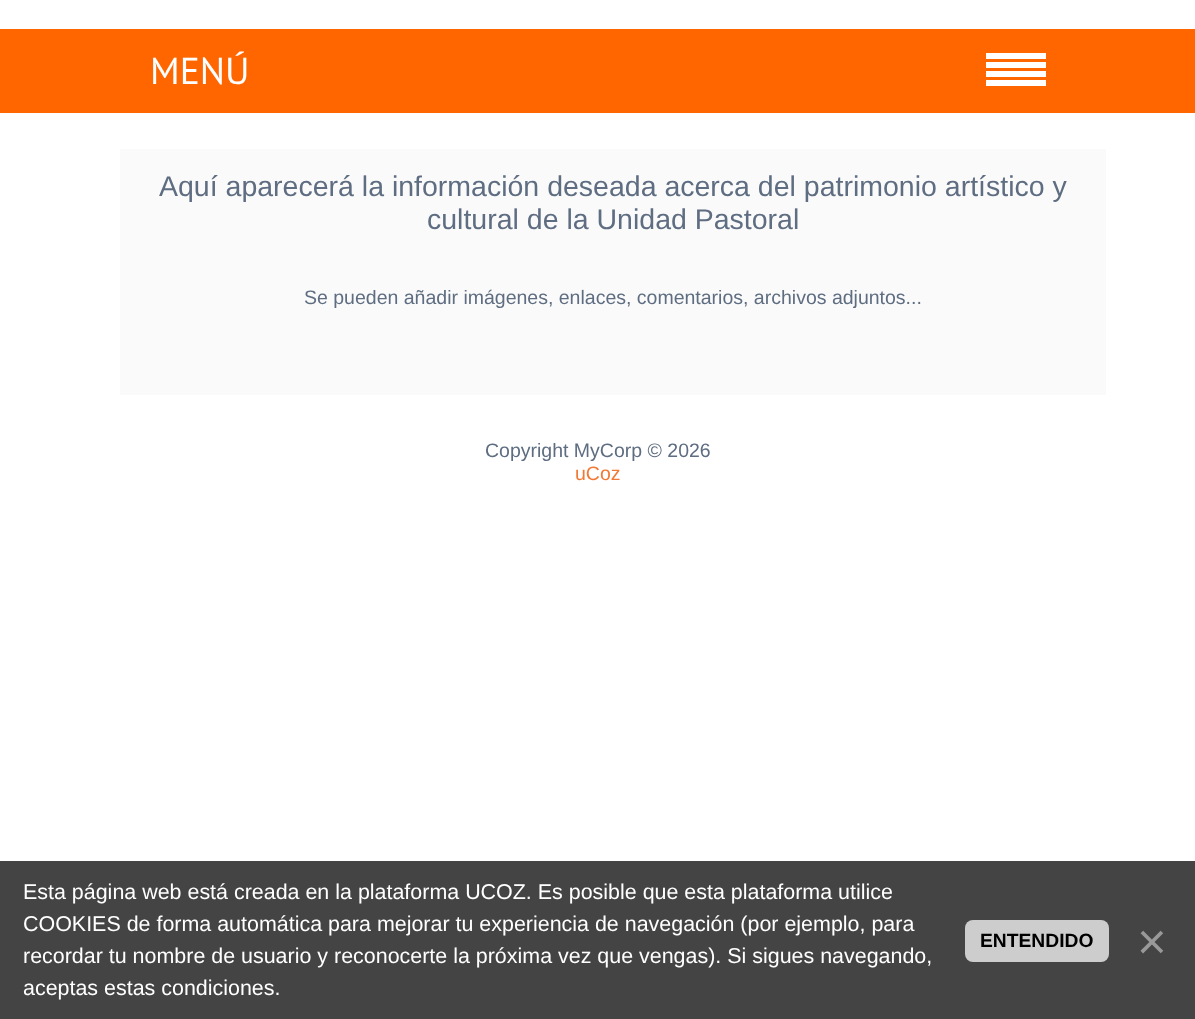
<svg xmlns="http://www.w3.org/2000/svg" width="1195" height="1019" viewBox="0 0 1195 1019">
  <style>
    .t1 { font: 37.5px PT Sans; fill: #fff; }
    .t2 { font: 28.5px Liberation Sans; fill: #5e6d81; }
    .t3 { font: 19.5px Liberation Sans; fill: #5e6d81; }
    .t4 { font: 19.5px Liberation Sans; fill: #f27935; }
    .t5 { font: 21.45px Liberation Sans; fill: #fff; }
    .t6 { font: bold 19.25px Liberation Sans; fill: #000; }
    .t7 { font: 51px Liberation Sans; fill: #999; }
  </style>
  <rect width="100%" height="100%" fill="#fff"/>
  <rect x="0" y="29" width="1195" height="84" fill="#f60"/>
  <text x="150" y="84" class="t1">MENÚ</text>
  <rect x="986" y="53" width="60" height="6" fill="#fff"/>
  <rect x="986" y="62" width="60" height="6" fill="#fff"/>
  <rect x="986" y="71" width="60" height="6" fill="#fff"/>
  <rect x="986" y="80" width="60" height="6" fill="#fff"/>
  <rect x="120" y="149" width="986" height="246" fill="#fafafa"/>
  <text x="159" y="196" class="t2">Aquí aparecerá la información deseada acerca del patrimonio artístico y</text>
  <text x="427" y="229" class="t2">cultural de la Unidad Pastoral</text>
  <text x="304" y="304" class="t3">Se pueden añadir imágenes, enlaces, comentarios, archivos adjuntos...</text>
  <text x="485" y="457" class="t3">Copyright MyCorp © 2026</text>
  <text x="575" y="480" class="t4">uCoz</text>
  <rect x="0" y="861" width="1195" height="158" fill="#444"/>
  <text x="23" y="899" class="t5">Esta página web está creada en la plataforma UCOZ. Es posible que esta plataforma utilice</text>
  <text x="23" y="931" class="t5">COOKIES de forma automática para mejorar tu experiencia de navegación (por ejemplo, para</text>
  <text x="23" y="963" class="t5">recordar tu nombre de usuario y reconocerte la próxima vez que vengas). Si sigues navegando,</text>
  <text x="23" y="995" class="t5">aceptas estas condiciones.</text>
  <rect x="965" y="920" width="144" height="42" rx="8" fill="#cdcdcd"/>
  <text x="980" y="947" class="t6">ENTENDIDO</text>
  <text x="1137" y="959" class="t7">×</text>
</svg>
